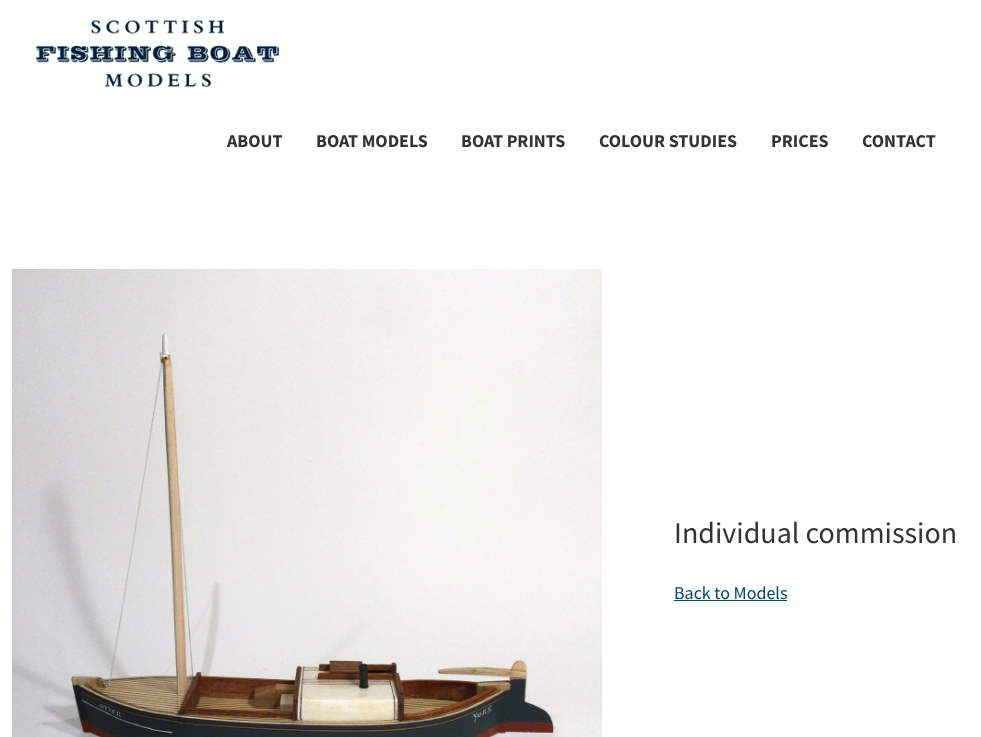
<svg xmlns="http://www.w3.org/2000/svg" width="981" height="737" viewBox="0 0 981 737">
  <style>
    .t1 { font: bold 18px Source Sans Pro; fill: #333; }
    .t2 { font: 30px Source Sans Pro; fill: #333; }
    .t3 { font: 18px Source Sans Pro; fill: #004770; }
  </style>
  <rect width="100%" height="100%" fill="#fff"/>
  <image x="36" y="20" width="243" height="67" href="images/1.png"/>
  <text x="227" y="147" class="t1">ABOUT</text>
  <text x="316" y="147" class="t1">BOAT MODELS</text>
  <text x="461" y="147" class="t1">BOAT PRINTS</text>
  <text x="599" y="147" class="t1">COLOUR STUDIES</text>
  <text x="771" y="147" class="t1">PRICES</text>
  <text x="862" y="147" class="t1">CONTACT</text>
  <image x="12" y="269" width="590" height="468" href="images/2.png"/>
  <text x="674" y="543" class="t2">Individual commission</text>
  <text x="674" y="599" class="t3">Back to Models</text>
  <rect x="674" y="600" width="113" height="1" fill="#004770"/>
</svg>
